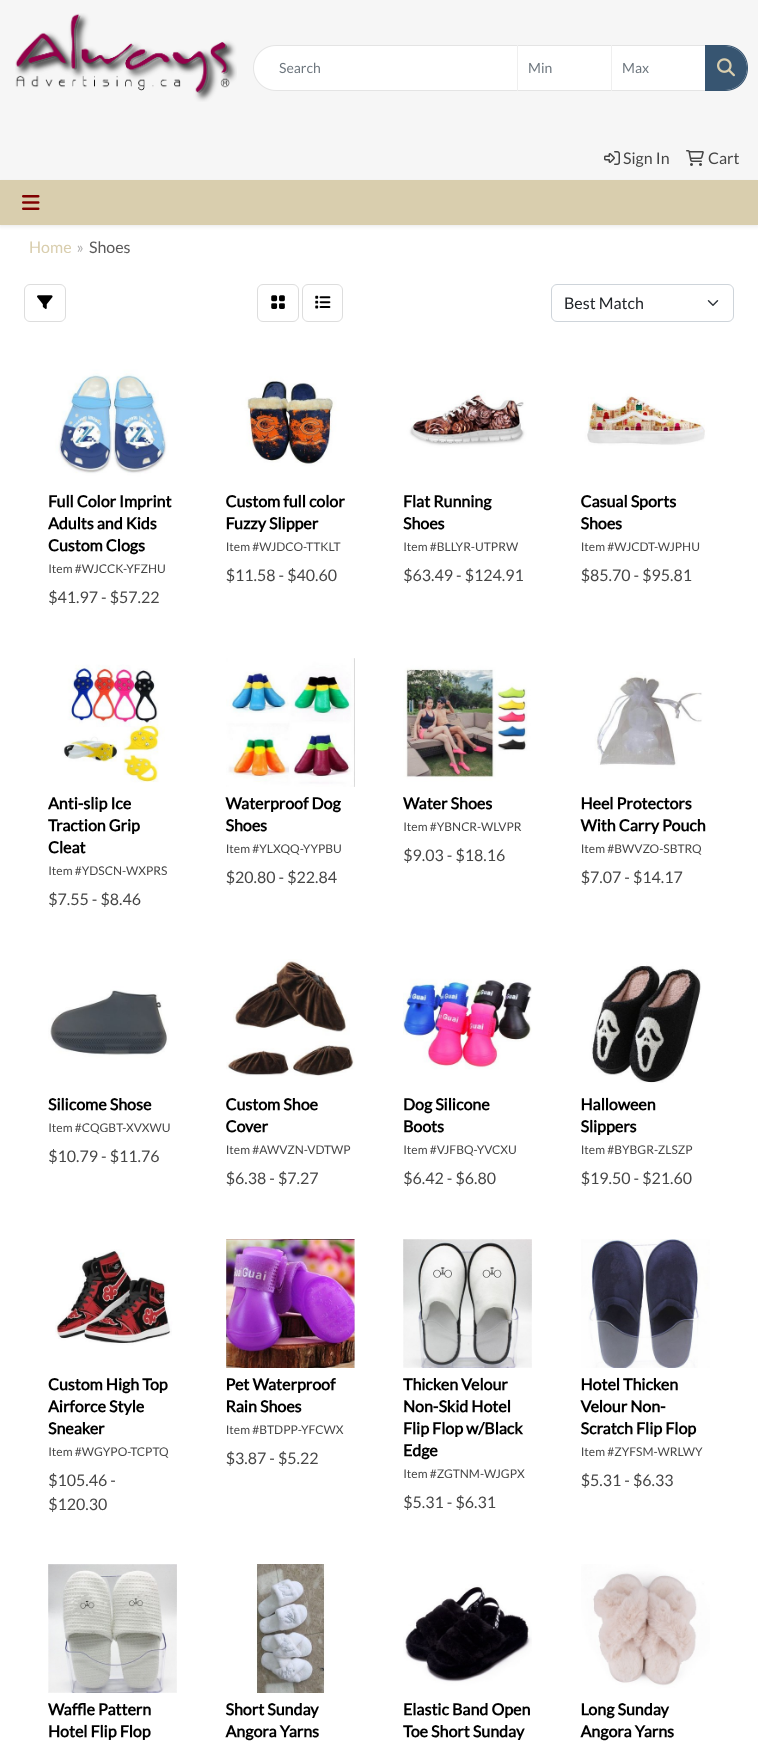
#include <cairo.h>
#include <math.h>
#include <stddef.h>


static void round_rect(cairo_t *cr, double x, double y, double w, double h, double r) {
    cairo_new_sub_path(cr);
    cairo_arc(cr, x + w - r, y + h - r, r, 0, M_PI / 2);
    cairo_arc(cr, x + r, y + h - r, r, M_PI / 2, M_PI);
    cairo_arc(cr, x + r, y + r, r, M_PI, 1.5 * M_PI);
    cairo_arc(cr, x + w - r, y + r, r, 1.5 * M_PI, 2 * M_PI);
    cairo_close_path(cr);
}

static void shadow(cairo_t *cr, double x, double y, double w, double h, double r, double blur, double alpha) {
    cairo_push_group_with_content(cr, CAIRO_CONTENT_ALPHA);
    cairo_set_operator(cr, CAIRO_OPERATOR_SOURCE);
    for (int i = 15; i >= -15 && fmin(w, h) + blur * i / 3 > 0; i -= 2) {
        double e = blur * i / 6;
        cairo_set_source_rgba(cr, 0, 0, 0, alpha * erfc((i - 1) / 8.5) / 2);
        round_rect(cr, x - e, y - e, w + 2 * e, h + 2 * e, fmax(0, fmin(r + e + blur * .6, fmin(w, h) / 2 + e)));
        cairo_fill(cr);
    }
    cairo_pattern_t *soft = cairo_pop_group(cr);
    cairo_mask(cr, soft);
    cairo_pattern_destroy(soft);
}

static void picture(cairo_t *cr, const char *path, double x, double y, double w, double h) {
    cairo_surface_t *image = cairo_image_surface_create_from_png(path);
    cairo_save(cr);
    cairo_set_source_surface(cr, image, x, y);
    cairo_rectangle(cr, x, y, w, h);
    cairo_fill(cr);
    cairo_restore(cr);
    cairo_surface_destroy(image);
}

int main(void) {
    cairo_surface_t *surface = cairo_image_surface_create(CAIRO_FORMAT_RGB24, 758, 1743);
    cairo_t *cr = cairo_create(surface);
    cairo_font_options_t *options = cairo_font_options_create();
    cairo_font_options_set_hint_metrics(options, CAIRO_HINT_METRICS_OFF);
    cairo_font_options_set_hint_style(options, CAIRO_HINT_STYLE_NONE);
    cairo_set_font_options(cr, options);
    cairo_set_miter_limit(cr, 4);
    cairo_set_source_rgb(cr, 1, 1, 1);
    cairo_paint(cr);
    cairo_set_source_rgb(cr, 0.961, 0.961, 0.961);
    cairo_rectangle(cr, 0, 0, 758, 180);
    cairo_fill(cr);
    picture(cr, "img1.png", 15, 13, 222, 89);
    cairo_set_source_rgb(cr, 1, 1, 1);
    cairo_new_path(cr);
    cairo_move_to(cr, 276, 45.5);
    cairo_line_to(cr, 517.5, 45.5);
    cairo_line_to(cr, 517.5, 90.5);
    cairo_line_to(cr, 276, 90.5);
    cairo_curve_to(cr, 263.5, 90.5, 253.5, 80.5, 253.5, 68);
    cairo_curve_to(cr, 253.5, 55.5, 263.5, 45.5, 276, 45.5);
    cairo_close_path(cr);
    cairo_fill_preserve(cr);
    cairo_set_source_rgb(cr, 0.894, 0.894, 0.894);
    cairo_set_line_width(cr, 1);
    cairo_stroke(cr);
    cairo_select_font_face(cr, "Lato", CAIRO_FONT_SLANT_NORMAL, CAIRO_FONT_WEIGHT_NORMAL);
    cairo_set_font_size(cr, 14);
    cairo_set_source_rgb(cr, 0.424, 0.459, 0.49);
    cairo_move_to(cr, 279, 73);
    cairo_show_text(cr, "Search");
    cairo_set_source_rgb(cr, 1, 1, 1);
    cairo_rectangle(cr, 518, 46, 93, 44);
    cairo_fill(cr);
    cairo_set_source_rgb(cr, 0.894, 0.894, 0.894);
    cairo_rectangle(cr, 517, 45, 189, 1);
    cairo_fill(cr);
    cairo_rectangle(cr, 517, 90, 189, 1);
    cairo_fill(cr);
    cairo_set_source_rgb(cr, 0.937, 0.937, 0.937);
    cairo_rectangle(cr, 517, 45, 1, 46);
    cairo_fill(cr);
    cairo_set_source_rgb(cr, 0.424, 0.459, 0.49);
    cairo_move_to(cr, 528, 73);
    cairo_show_text(cr, "Min");
    cairo_set_source_rgb(cr, 1, 1, 1);
    cairo_rectangle(cr, 612, 46, 93, 44);
    cairo_fill(cr);
    cairo_set_source_rgb(cr, 0.937, 0.937, 0.937);
    cairo_rectangle(cr, 611, 45, 1, 46);
    cairo_fill(cr);
    cairo_set_source_rgb(cr, 0.424, 0.459, 0.49);
    cairo_move_to(cr, 622, 73);
    cairo_show_text(cr, "Max");
    cairo_set_source_rgb(cr, 0.216, 0.333, 0.443);
    cairo_new_path(cr);
    cairo_move_to(cr, 705, 46);
    cairo_line_to(cr, 725, 46);
    cairo_curve_to(cr, 737, 46, 747, 56, 747, 68);
    cairo_curve_to(cr, 747, 80, 737, 90, 725, 90);
    cairo_line_to(cr, 705, 90);
    cairo_close_path(cr);
    cairo_fill(cr);
    cairo_set_fill_rule(cr, CAIRO_FILL_RULE_EVEN_ODD);
    cairo_new_path(cr);
    cairo_move_to(cr, 705, 45);
    cairo_line_to(cr, 725, 45);
    cairo_curve_to(cr, 738, 45, 748, 55, 748, 68);
    cairo_curve_to(cr, 748, 81, 738, 91, 725, 91);
    cairo_line_to(cr, 705, 91);
    cairo_close_path(cr);
    cairo_move_to(cr, 705, 46);
    cairo_line_to(cr, 725, 46);
    cairo_curve_to(cr, 737, 46, 747, 56, 747, 68);
    cairo_curve_to(cr, 747, 80, 737, 90, 725, 90);
    cairo_line_to(cr, 705, 90);
    cairo_close_path(cr);
    cairo_fill(cr);
    picture(cr, "img2.png", 717, 58, 18, 19);
    picture(cr, "img3.png", 604, 151, 16, 14);
    cairo_set_font_size(cr, 16);
    cairo_set_source_rgb(cr, 0.267, 0.267, 0.267);
    cairo_move_to(cr, 623, 164);
    cairo_show_text(cr, "Sign In");
    picture(cr, "img4.png", 686, 150, 18, 16);
    cairo_move_to(cr, 708, 164);
    cairo_show_text(cr, "Cart");
    cairo_set_source_rgb(cr, 0, 0, 0);
    shadow(cr, 0, 182, 758, 45, 0, 2, 0.07);
    cairo_set_source_rgb(cr, 0.851, 0.808, 0.682);
    cairo_rectangle(cr, 0, 180, 758, 45);
    cairo_fill(cr);
    picture(cr, "img5.png", 22, 195, 18, 15);
    picture(cr, "img6.png", 24, 241, 710, 1500);
    cairo_surface_write_to_png(surface, "page.png");
    cairo_font_options_destroy(options);
    cairo_destroy(cr);
    cairo_surface_destroy(surface);
    return 0;
}
